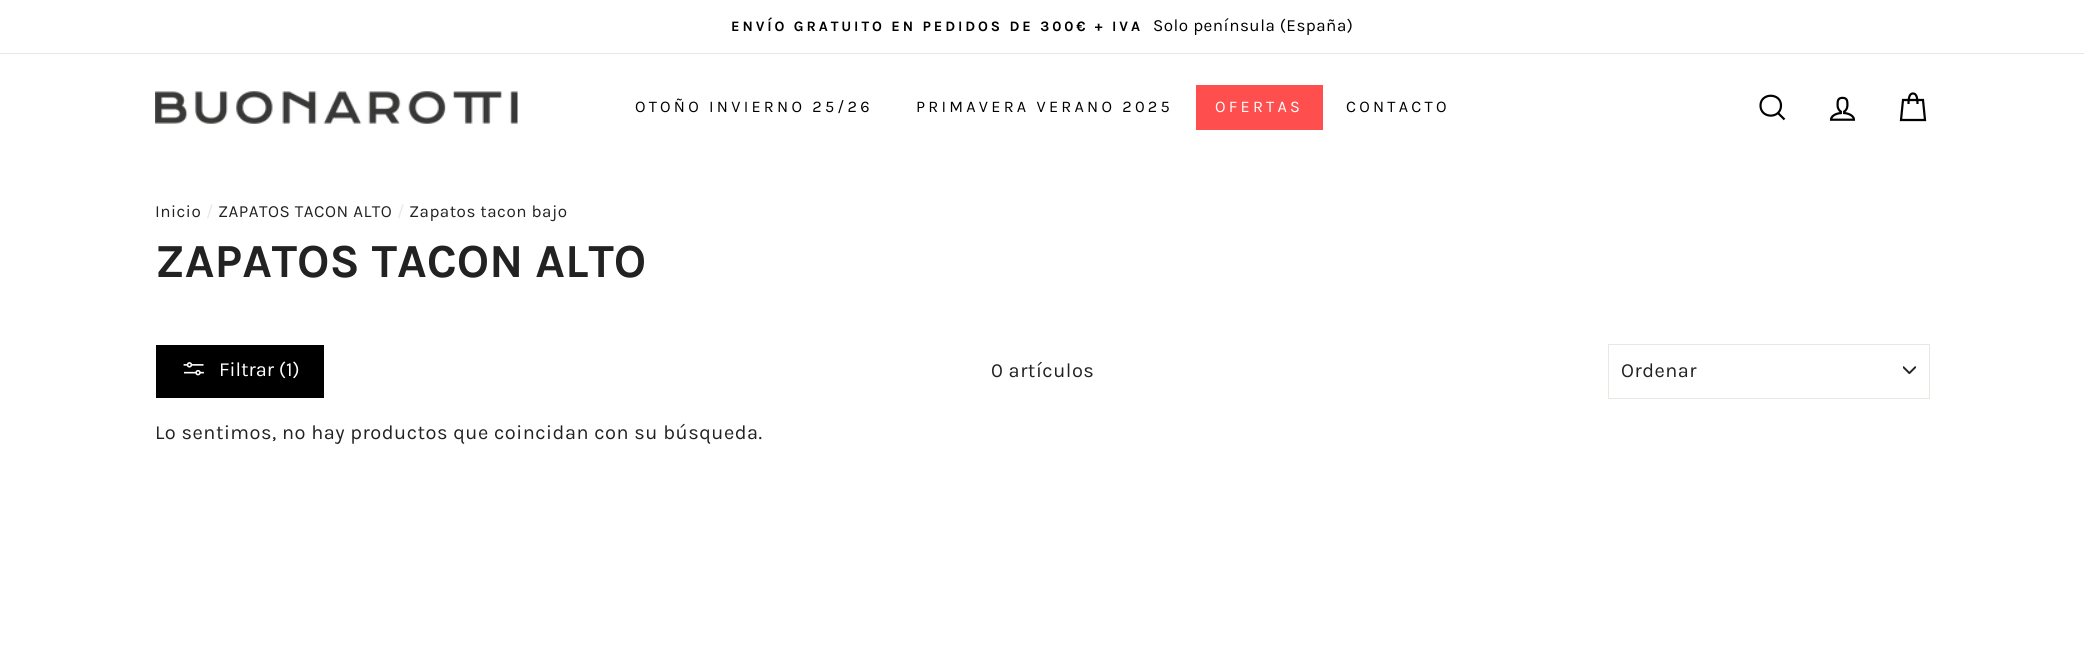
#include <cairo.h>
#include <math.h>
#include <stddef.h>


static void spaced_text(cairo_t *cr, double x, double y, const char *s, double letter, double word) {
    cairo_move_to(cr, x, y);
    while (*s) {
        char ch[5] = {0};
        int n = 0;
        do ch[n++] = *s++; while ((*s & 0xC0) == 0x80);
        cairo_show_text(cr, ch);
        cairo_rel_move_to(cr, letter + word * (*ch == ' '), 0);
    }
}

static void picture(cairo_t *cr, const char *path, double x, double y, double w, double h) {
    cairo_surface_t *image = cairo_image_surface_create_from_png(path);
    cairo_save(cr);
    cairo_set_source_surface(cr, image, x, y);
    cairo_rectangle(cr, x, y, w, h);
    cairo_fill(cr);
    cairo_restore(cr);
    cairo_surface_destroy(image);
}

int main(void) {
    cairo_surface_t *surface = cairo_image_surface_create(CAIRO_FORMAT_RGB24, 2084, 666);
    cairo_t *cr = cairo_create(surface);
    cairo_font_options_t *options = cairo_font_options_create();
    cairo_font_options_set_hint_metrics(options, CAIRO_HINT_METRICS_OFF);
    cairo_font_options_set_hint_style(options, CAIRO_HINT_STYLE_NONE);
    cairo_set_font_options(cr, options);
    cairo_set_miter_limit(cr, 4);
    cairo_set_source_rgb(cr, 1, 1, 1);
    cairo_paint(cr);
    cairo_set_source_rgb(cr, 0.91, 0.91, 0.882);
    cairo_rectangle(cr, 0, 53, 2084, 1);
    cairo_fill(cr);
    cairo_select_font_face(cr, "Karla", CAIRO_FONT_SLANT_NORMAL, CAIRO_FONT_WEIGHT_BOLD);
    cairo_set_font_size(cr, 14.45);
    cairo_set_source_rgb(cr, 0, 0, 0);
    spaced_text(cr, 731, 31, "ENVÍO GRATUITO EN PEDIDOS DE 300€ + IVA", 2.9, 0);
    cairo_select_font_face(cr, "Karla", CAIRO_FONT_SLANT_NORMAL, CAIRO_FONT_WEIGHT_NORMAL);
    cairo_set_font_size(cr, 17);
    spaced_text(cr, 1153, 31, "Solo península (España)", 0.5, 0);
    picture(cr, "img1.png", 155, 91, 363, 33);
    cairo_set_font_size(cr, 16.25);
    spaced_text(cr, 635, 112, "OTOÑO INVIERNO 25/26", 3.25, 0);
    spaced_text(cr, 916, 112, "PRIMAVERA VERANO 2025", 3.25, 0);
    cairo_set_source_rgb(cr, 1, 0.306, 0.306);
    cairo_rectangle(cr, 1196, 85, 127, 45);
    cairo_fill(cr);
    cairo_set_source_rgb(cr, 1, 1, 1);
    spaced_text(cr, 1215, 112, "OFERTAS", 3.25, 0);
    cairo_set_source_rgb(cr, 0, 0, 0);
    spaced_text(cr, 1346, 112, "CONTACTO", 3.25, 0);
    cairo_new_path(cr);
    cairo_move_to(cr, 1781, 105.5);
    cairo_curve_to(cr, 1781, 119, 1760.5, 119, 1760.5, 105.5);
    cairo_curve_to(cr, 1760.5, 92.5, 1781, 92.5, 1781, 105.5);
    cairo_close_path(cr);
    cairo_move_to(cr, 1784.5, 119.5);
    cairo_line_to(cr, 1778, 113);
    cairo_set_line_width(cr, 2.2);
    cairo_stroke(cr);
    picture(cr, "img2.png", 1829, 96, 27, 25);
    cairo_new_path(cr);
    cairo_move_to(cr, 1908.5, 104);
    cairo_curve_to(cr, 1908.5, 95.5, 1910.5, 93.5, 1913, 93.5);
    cairo_curve_to(cr, 1915.5, 93.5, 1917.5, 95.5, 1917.5, 104);
    cairo_move_to(cr, 1903, 100);
    cairo_line_to(cr, 1923, 100);
    cairo_line_to(cr, 1925, 120);
    cairo_line_to(cr, 1901, 120);
    cairo_close_path(cr);
    cairo_stroke(cr);
    cairo_set_font_size(cr, 17);
    cairo_set_source_rgb(cr, 0.133, 0.133, 0.133);
    spaced_text(cr, 155, 217, "Inicio", 0.5, 0);
    cairo_set_source_rgb(cr, 0.91, 0.91, 0.882);
    spaced_text(cr, 206, 217, "/", 0.5, 0);
    cairo_set_source_rgb(cr, 0.133, 0.133, 0.133);
    spaced_text(cr, 218, 217, "ZAPATOS TACON ALTO", 0.5, 0);
    cairo_set_source_rgb(cr, 0.91, 0.91, 0.882);
    spaced_text(cr, 397, 217, "/", 0.5, 0);
    cairo_set_source_rgb(cr, 0.133, 0.133, 0.133);
    spaced_text(cr, 409, 217, "Zapatos tacon bajo", 0.5, 0);
    cairo_select_font_face(cr, "Karla", CAIRO_FONT_SLANT_NORMAL, CAIRO_FONT_WEIGHT_BOLD);
    cairo_set_font_size(cr, 47.5);
    cairo_move_to(cr, 155, 277);
    cairo_show_text(cr, "ZAPATOS TACON ALTO");
    cairo_set_source_rgb(cr, 0, 0, 0);
    cairo_rectangle(cr, 156, 345, 168, 53);
    cairo_fill(cr);
    picture(cr, "img3.png", 183, 362, 21, 14);
    cairo_select_font_face(cr, "Karla", CAIRO_FONT_SLANT_NORMAL, CAIRO_FONT_WEIGHT_NORMAL);
    cairo_set_font_size(cr, 20);
    cairo_set_source_rgb(cr, 1, 1, 1);
    cairo_move_to(cr, 219, 376);
    cairo_show_text(cr, "Filtrar (1)");
    cairo_set_source_rgb(cr, 0.133, 0.133, 0.133);
    spaced_text(cr, 991, 377, "0 artículos", 0.5, 0);
    picture(cr, "img4.png", 1903, 366, 13, 8);
    cairo_rectangle(cr, 1608.5, 344.5, 321, 54);
    cairo_set_source_rgb(cr, 0.91, 0.91, 0.882);
    cairo_set_line_width(cr, 1);
    cairo_stroke(cr);
    cairo_set_source_rgb(cr, 0.133, 0.133, 0.133);
    spaced_text(cr, 1621, 377, "Ordenar", 0.5, 0);
    spaced_text(cr, 155, 439, "Lo sentimos, no hay productos que coincidan con su búsqueda.", 0.5, 0);
    cairo_surface_write_to_png(surface, "page.png");
    cairo_font_options_destroy(options);
    cairo_destroy(cr);
    cairo_surface_destroy(surface);
    return 0;
}
